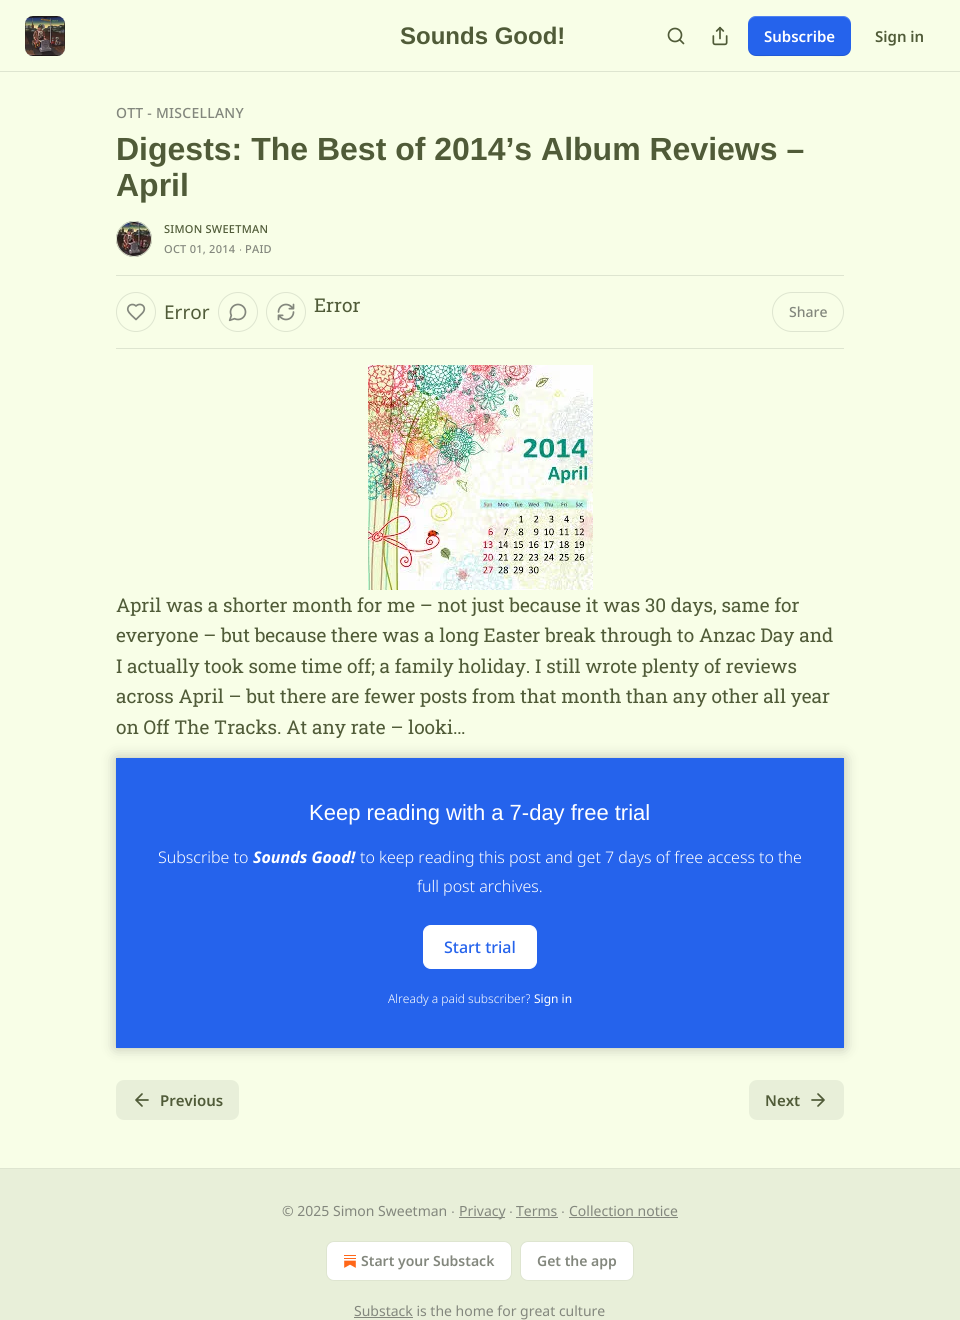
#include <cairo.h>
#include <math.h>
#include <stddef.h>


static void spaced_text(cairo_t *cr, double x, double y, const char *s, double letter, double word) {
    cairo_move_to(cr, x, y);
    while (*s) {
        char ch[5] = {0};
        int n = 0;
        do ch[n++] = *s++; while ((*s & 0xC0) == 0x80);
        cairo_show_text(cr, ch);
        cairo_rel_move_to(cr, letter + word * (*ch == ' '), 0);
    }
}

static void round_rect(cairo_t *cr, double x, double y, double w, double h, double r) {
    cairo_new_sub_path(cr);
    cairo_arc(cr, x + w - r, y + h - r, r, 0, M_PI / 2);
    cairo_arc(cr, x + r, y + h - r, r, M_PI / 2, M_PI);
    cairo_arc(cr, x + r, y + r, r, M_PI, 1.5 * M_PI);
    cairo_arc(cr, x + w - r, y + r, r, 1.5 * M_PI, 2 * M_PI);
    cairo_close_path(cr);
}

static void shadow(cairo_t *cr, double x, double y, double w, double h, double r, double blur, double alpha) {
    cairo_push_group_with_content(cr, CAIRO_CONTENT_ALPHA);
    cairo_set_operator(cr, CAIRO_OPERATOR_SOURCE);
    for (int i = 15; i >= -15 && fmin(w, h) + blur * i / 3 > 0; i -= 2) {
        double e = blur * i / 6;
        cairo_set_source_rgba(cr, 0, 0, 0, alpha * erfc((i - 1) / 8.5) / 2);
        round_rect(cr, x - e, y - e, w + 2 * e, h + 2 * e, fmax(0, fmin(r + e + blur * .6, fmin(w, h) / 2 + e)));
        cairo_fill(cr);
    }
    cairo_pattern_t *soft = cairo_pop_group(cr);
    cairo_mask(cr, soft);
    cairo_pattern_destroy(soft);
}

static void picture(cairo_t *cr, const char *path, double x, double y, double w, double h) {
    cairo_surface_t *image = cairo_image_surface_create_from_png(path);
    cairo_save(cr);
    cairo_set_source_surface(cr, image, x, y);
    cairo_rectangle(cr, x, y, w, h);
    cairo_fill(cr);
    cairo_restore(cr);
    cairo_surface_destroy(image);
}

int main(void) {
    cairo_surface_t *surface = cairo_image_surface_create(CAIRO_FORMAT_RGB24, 960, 1320);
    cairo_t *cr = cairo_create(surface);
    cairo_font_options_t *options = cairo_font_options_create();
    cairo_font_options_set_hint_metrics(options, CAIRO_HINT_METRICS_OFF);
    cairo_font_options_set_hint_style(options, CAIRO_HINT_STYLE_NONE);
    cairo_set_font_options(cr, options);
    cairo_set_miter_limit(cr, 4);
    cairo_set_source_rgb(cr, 0.969, 0.996, 0.906);
    cairo_paint(cr);
    cairo_set_source_rgb(cr, 0.871, 0.898, 0.816);
    cairo_rectangle(cr, 0, 71, 960, 1);
    cairo_fill(cr);
    cairo_set_source_rgb(cr, 1, 1, 1);
    round_rect(cr, 25, 16, 40, 40, 8);
    cairo_fill(cr);
    picture(cr, "img1.png", 25, 16, 40, 40);
    cairo_select_font_face(cr, "Liberation Sans", CAIRO_FONT_SLANT_NORMAL, CAIRO_FONT_WEIGHT_BOLD);
    cairo_set_font_size(cr, 24);
    cairo_set_source_rgb(cr, 0.314, 0.357, 0.22);
    cairo_move_to(cr, 400, 44);
    cairo_show_text(cr, "Sounds Good!");
    cairo_new_path(cr);
    cairo_arc(cr, 675, 35, 6.5, 0, 2 * M_PI);
    cairo_set_line_width(cr, 1.7);
    cairo_stroke(cr);
    cairo_new_path(cr);
    cairo_move_to(cr, 683.5, 43.5);
    cairo_line_to(cr, 680, 40);
    cairo_set_line_cap(cr, CAIRO_LINE_CAP_ROUND);
    cairo_set_line_join(cr, CAIRO_LINE_JOIN_ROUND);
    cairo_stroke(cr);
    picture(cr, "img2.png", 712, 26, 16, 20);
    cairo_set_source_rgb(cr, 0.145, 0.388, 0.922);
    round_rect(cr, 748, 16, 103, 40, 8);
    cairo_fill(cr);
    cairo_set_source_rgba(cr, 0, 0, 0, 0.1);
    cairo_new_path(cr);
    cairo_move_to(cr, 748, 47);
    cairo_curve_to(cr, 748, 59, 762, 56, 770, 56);
    cairo_line_to(cr, 828, 56);
    cairo_curve_to(cr, 837, 56, 851, 59, 851, 47);
    cairo_curve_to(cr, 851, 51, 847, 55, 843, 55);
    cairo_line_to(cr, 756, 55);
    cairo_curve_to(cr, 752, 55, 748, 51, 748, 47);
    cairo_close_path(cr);
    cairo_fill(cr);
    cairo_set_source_rgba(cr, 1, 1, 1, 0.2);
    cairo_new_path(cr);
    cairo_move_to(cr, 756, 17);
    cairo_line_to(cr, 843, 17);
    cairo_curve_to(cr, 847, 17, 851, 21, 851, 25);
    cairo_curve_to(cr, 851, 13, 837, 16, 828, 16);
    cairo_line_to(cr, 770, 16);
    cairo_curve_to(cr, 762, 16, 748, 13, 748, 25);
    cairo_curve_to(cr, 748, 21, 752, 17, 756, 17);
    cairo_close_path(cr);
    cairo_fill(cr);
    cairo_select_font_face(cr, "Noto Sans SemiBold", CAIRO_FONT_SLANT_NORMAL, CAIRO_FONT_WEIGHT_NORMAL);
    cairo_set_font_size(cr, 15);
    cairo_set_source_rgb(cr, 1, 1, 1);
    cairo_move_to(cr, 764, 42);
    cairo_show_text(cr, "Subscribe");
    cairo_set_source_rgb(cr, 0.314, 0.357, 0.22);
    cairo_move_to(cr, 875, 42);
    cairo_show_text(cr, "Sign in");
    cairo_select_font_face(cr, "Noto Sans Medium", CAIRO_FONT_SLANT_NORMAL, CAIRO_FONT_WEIGHT_NORMAL);
    cairo_set_font_size(cr, 14);
    cairo_set_source_rgb(cr, 0.514, 0.529, 0.49);
    spaced_text(cr, 116, 118, "OTT - MISCELLANY", 0.25, 0);
    cairo_select_font_face(cr, "Liberation Sans", CAIRO_FONT_SLANT_NORMAL, CAIRO_FONT_WEIGHT_BOLD);
    cairo_set_font_size(cr, 32);
    cairo_set_source_rgb(cr, 0.314, 0.357, 0.22);
    cairo_move_to(cr, 116, 160);
    cairo_show_text(cr, "Digests: The Best of 2014’s Album Reviews –");
    cairo_move_to(cr, 116, 196);
    cairo_show_text(cr, "April");
    cairo_new_path(cr);
    cairo_arc(cr, 134, 239, 17.5, 0, 2 * M_PI);
    cairo_set_source_rgb(cr, 0.871, 0.898, 0.816);
    cairo_set_line_width(cr, 1);
    cairo_set_line_cap(cr, CAIRO_LINE_CAP_BUTT);
    cairo_set_line_join(cr, CAIRO_LINE_JOIN_MITER);
    cairo_stroke(cr);
    picture(cr, "img3.png", 116, 221, 36, 36);
    cairo_arc(cr, 134, 239, 17.5, 0, 2 * M_PI);
    cairo_stroke(cr);
    cairo_select_font_face(cr, "Noto Sans Medium", CAIRO_FONT_SLANT_NORMAL, CAIRO_FONT_WEIGHT_NORMAL);
    cairo_set_font_size(cr, 11);
    cairo_set_source_rgb(cr, 0.314, 0.357, 0.22);
    spaced_text(cr, 164, 233, "SIMON SWEETMAN", 0.25, 0);
    cairo_set_source_rgb(cr, 0.514, 0.529, 0.49);
    spaced_text(cr, 164, 253, "OCT 01, 2014", 0.25, 0);
    cairo_select_font_face(cr, "Liberation Sans", CAIRO_FONT_SLANT_NORMAL, CAIRO_FONT_WEIGHT_NORMAL);
    spaced_text(cr, 239, 253, "∙", 0.25, 0);
    cairo_select_font_face(cr, "Noto Sans Medium", CAIRO_FONT_SLANT_NORMAL, CAIRO_FONT_WEIGHT_NORMAL);
    spaced_text(cr, 245, 253, "PAID", 0.25, 0);
    cairo_set_source_rgb(cr, 0.871, 0.898, 0.816);
    cairo_rectangle(cr, 116, 275, 728, 1);
    cairo_fill(cr);
    cairo_rectangle(cr, 116, 348, 728, 1);
    cairo_fill(cr);
    cairo_arc(cr, 136, 312, 19.5, 0, 2 * M_PI);
    cairo_stroke(cr);
    cairo_new_path(cr);
    cairo_move_to(cr, 142, 313.5);
    cairo_curve_to(cr, 148, 307.5, 141, 301.5, 136, 306);
    cairo_curve_to(cr, 132.5, 302.5, 126.5, 305.5, 128, 310.5);
    cairo_curve_to(cr, 129, 313.5, 134, 317.5, 136, 319.5);
    cairo_close_path(cr);
    cairo_set_source_rgb(cr, 0.514, 0.529, 0.49);
    cairo_set_line_width(cr, 1.7);
    cairo_set_line_cap(cr, CAIRO_LINE_CAP_ROUND);
    cairo_set_line_join(cr, CAIRO_LINE_JOIN_ROUND);
    cairo_stroke(cr);
    cairo_select_font_face(cr, "Noto Sans", CAIRO_FONT_SLANT_NORMAL, CAIRO_FONT_WEIGHT_NORMAL);
    cairo_set_font_size(cr, 19);
    cairo_set_source_rgb(cr, 0.314, 0.357, 0.22);
    cairo_move_to(cr, 164, 319);
    cairo_show_text(cr, "Error");
    cairo_new_path(cr);
    cairo_arc(cr, 238, 312, 19.5, 0, 2 * M_PI);
    cairo_set_source_rgb(cr, 0.871, 0.898, 0.816);
    cairo_set_line_width(cr, 1);
    cairo_set_line_cap(cr, CAIRO_LINE_CAP_BUTT);
    cairo_set_line_join(cr, CAIRO_LINE_JOIN_MITER);
    cairo_stroke(cr);
    picture(cr, "img4.png", 228, 303, 19, 19);
    cairo_arc(cr, 286, 312, 19.5, 0, 2 * M_PI);
    cairo_stroke(cr);
    picture(cr, "img5.png", 277, 303, 18, 18);
    cairo_select_font_face(cr, "Roboto Slab", CAIRO_FONT_SLANT_NORMAL, CAIRO_FONT_WEIGHT_NORMAL);
    cairo_set_source_rgb(cr, 0.314, 0.357, 0.22);
    cairo_move_to(cr, 314, 312);
    cairo_show_text(cr, "Error");
    round_rect(cr, 772.5, 292.5, 71, 39, 19.5);
    cairo_set_source_rgb(cr, 0.871, 0.898, 0.816);
    cairo_stroke(cr);
    cairo_select_font_face(cr, "Noto Sans Medium", CAIRO_FONT_SLANT_NORMAL, CAIRO_FONT_WEIGHT_NORMAL);
    cairo_set_font_size(cr, 14);
    cairo_set_source_rgb(cr, 0.514, 0.529, 0.49);
    cairo_move_to(cr, 789, 317);
    cairo_show_text(cr, "Share");
    picture(cr, "img6.png", 368, 365, 225, 225);
    cairo_select_font_face(cr, "Roboto Slab", CAIRO_FONT_SLANT_NORMAL, CAIRO_FONT_WEIGHT_NORMAL);
    cairo_set_font_size(cr, 19);
    cairo_set_source_rgb(cr, 0.314, 0.357, 0.22);
    cairo_move_to(cr, 116, 612);
    cairo_show_text(cr, "April was a shorter month for me – not just because it was 30 days, same for");
    cairo_move_to(cr, 116, 642);
    cairo_show_text(cr, "everyone – but because there was a long Easter break through to Anzac Day and");
    cairo_move_to(cr, 116, 673);
    cairo_show_text(cr, "I actually took some time off; a family holiday. I still wrote plenty of reviews");
    cairo_move_to(cr, 116, 703);
    cairo_show_text(cr, "across April – but there are fewer posts from that month than any other all year");
    cairo_move_to(cr, 116, 734);
    cairo_show_text(cr, "on Off The Tracks. At any rate – looki…");
    cairo_set_source_rgb(cr, 0.145, 0.388, 0.922);
    cairo_rectangle(cr, 116, 758, 728, 290);
    cairo_fill(cr);
    cairo_set_source_rgb(cr, 1, 1, 1);
    round_rect(cr, 423.5, 925.5, 113, 43, 7.5);
    cairo_fill_preserve(cr);
    cairo_stroke(cr);
    cairo_save(cr);
    cairo_set_fill_rule(cr, CAIRO_FILL_RULE_EVEN_ODD);
    cairo_new_path(cr);
    cairo_move_to(cr, 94, 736);
    cairo_line_to(cr, 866, 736);
    cairo_line_to(cr, 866, 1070);
    cairo_line_to(cr, 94, 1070);
    cairo_close_path(cr);
    cairo_move_to(cr, 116, 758);
    cairo_line_to(cr, 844, 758);
    cairo_line_to(cr, 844, 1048);
    cairo_line_to(cr, 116, 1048);
    cairo_close_path(cr);
    cairo_clip(cr);
    cairo_set_source_rgb(cr, 0, 0, 0);
    shadow(cr, 116, 758, 728, 290, 0, 7, 0.25);
    cairo_restore(cr);
    cairo_select_font_face(cr, "Liberation Sans", CAIRO_FONT_SLANT_NORMAL, CAIRO_FONT_WEIGHT_NORMAL);
    cairo_set_font_size(cr, 22);
    cairo_move_to(cr, 309, 820);
    cairo_show_text(cr, "Keep reading with a 7-day free trial");
    cairo_select_font_face(cr, "Noto Sans Light", CAIRO_FONT_SLANT_NORMAL, CAIRO_FONT_WEIGHT_NORMAL);
    cairo_set_font_size(cr, 16);
    cairo_move_to(cr, 158, 863);
    cairo_show_text(cr, "Subscribe to");
    cairo_select_font_face(cr, "Noto Sans", CAIRO_FONT_SLANT_ITALIC, CAIRO_FONT_WEIGHT_BOLD);
    cairo_move_to(cr, 253, 863);
    cairo_show_text(cr, "Sounds Good!");
    cairo_select_font_face(cr, "Noto Sans Light", CAIRO_FONT_SLANT_NORMAL, CAIRO_FONT_WEIGHT_NORMAL);
    cairo_move_to(cr, 360, 863);
    cairo_show_text(cr, "to keep reading this post and get 7 days of free access to the");
    cairo_move_to(cr, 417, 892);
    cairo_show_text(cr, "full post archives.");
    cairo_select_font_face(cr, "Noto Sans Medium", CAIRO_FONT_SLANT_NORMAL, CAIRO_FONT_WEIGHT_NORMAL);
    cairo_set_source_rgb(cr, 0.145, 0.388, 0.922);
    cairo_move_to(cr, 444, 953);
    cairo_show_text(cr, "Start trial");
    cairo_select_font_face(cr, "Noto Sans Light", CAIRO_FONT_SLANT_NORMAL, CAIRO_FONT_WEIGHT_NORMAL);
    cairo_set_font_size(cr, 12);
    cairo_set_source_rgb(cr, 1, 1, 1);
    cairo_move_to(cr, 388, 1003);
    cairo_show_text(cr, "Already a paid subscriber?");
    cairo_select_font_face(cr, "Noto Sans", CAIRO_FONT_SLANT_NORMAL, CAIRO_FONT_WEIGHT_NORMAL);
    cairo_move_to(cr, 534, 1003);
    cairo_show_text(cr, "Sign in");
    cairo_set_source_rgb(cr, 0.91, 0.937, 0.851);
    round_rect(cr, 116, 1080, 123, 40, 8);
    cairo_fill(cr);
    cairo_new_path(cr);
    cairo_move_to(cr, 142, 1106);
    cairo_line_to(cr, 136, 1100);
    cairo_line_to(cr, 142, 1094);
    cairo_move_to(cr, 148, 1100);
    cairo_line_to(cr, 136, 1100);
    cairo_set_source_rgb(cr, 0.314, 0.357, 0.22);
    cairo_set_line_width(cr, 1.7);
    cairo_set_line_cap(cr, CAIRO_LINE_CAP_ROUND);
    cairo_set_line_join(cr, CAIRO_LINE_JOIN_ROUND);
    cairo_stroke(cr);
    cairo_select_font_face(cr, "Noto Sans SemiBold", CAIRO_FONT_SLANT_NORMAL, CAIRO_FONT_WEIGHT_NORMAL);
    cairo_set_font_size(cr, 15);
    cairo_move_to(cr, 160, 1106);
    cairo_show_text(cr, "Previous");
    cairo_set_source_rgb(cr, 0.91, 0.937, 0.851);
    round_rect(cr, 749, 1080, 95, 40, 8);
    cairo_fill(cr);
    cairo_set_source_rgb(cr, 0.314, 0.357, 0.22);
    cairo_move_to(cr, 765, 1106);
    cairo_show_text(cr, "Next");
    cairo_new_path(cr);
    cairo_move_to(cr, 812, 1100);
    cairo_line_to(cr, 824, 1100);
    cairo_move_to(cr, 818, 1094);
    cairo_line_to(cr, 824, 1100);
    cairo_line_to(cr, 818, 1106);
    cairo_stroke(cr);
    cairo_set_source_rgb(cr, 0.91, 0.937, 0.851);
    cairo_rectangle(cr, 0, 1169, 960, 151);
    cairo_fill(cr);
    cairo_set_source_rgb(cr, 0.871, 0.898, 0.816);
    cairo_rectangle(cr, 0, 1168, 960, 1);
    cairo_fill(cr);
    cairo_select_font_face(cr, "Noto Sans", CAIRO_FONT_SLANT_NORMAL, CAIRO_FONT_WEIGHT_NORMAL);
    cairo_set_font_size(cr, 14);
    cairo_set_source_rgb(cr, 0.514, 0.529, 0.49);
    cairo_move_to(cr, 282, 1216);
    cairo_show_text(cr, "© 2025 Simon Sweetman");
    cairo_select_font_face(cr, "Liberation Sans", CAIRO_FONT_SLANT_NORMAL, CAIRO_FONT_WEIGHT_NORMAL);
    cairo_move_to(cr, 451, 1216);
    cairo_show_text(cr, "∙");
    cairo_rectangle(cr, 459, 1217, 46, 1);
    cairo_fill(cr);
    cairo_select_font_face(cr, "Noto Sans", CAIRO_FONT_SLANT_NORMAL, CAIRO_FONT_WEIGHT_NORMAL);
    cairo_move_to(cr, 459, 1216);
    cairo_show_text(cr, "Privacy");
    cairo_select_font_face(cr, "Liberation Sans", CAIRO_FONT_SLANT_NORMAL, CAIRO_FONT_WEIGHT_NORMAL);
    cairo_move_to(cr, 509, 1216);
    cairo_show_text(cr, "∙");
    cairo_select_font_face(cr, "Noto Sans", CAIRO_FONT_SLANT_NORMAL, CAIRO_FONT_WEIGHT_NORMAL);
    cairo_move_to(cr, 516, 1216);
    cairo_show_text(cr, "Terms");
    cairo_rectangle(cr, 516, 1217, 42, 1);
    cairo_fill(cr);
    cairo_select_font_face(cr, "Liberation Sans", CAIRO_FONT_SLANT_NORMAL, CAIRO_FONT_WEIGHT_NORMAL);
    cairo_move_to(cr, 561, 1216);
    cairo_show_text(cr, "∙");
    cairo_select_font_face(cr, "Noto Sans", CAIRO_FONT_SLANT_NORMAL, CAIRO_FONT_WEIGHT_NORMAL);
    cairo_move_to(cr, 569, 1216);
    cairo_show_text(cr, "Collection notice");
    cairo_rectangle(cr, 569, 1217, 109, 1);
    cairo_fill(cr);
    cairo_set_source_rgb(cr, 1, 1, 1);
    round_rect(cr, 326.5, 1241.5, 185, 39, 7.5);
    cairo_fill_preserve(cr);
    cairo_set_source_rgb(cr, 0.871, 0.898, 0.816);
    cairo_set_line_width(cr, 1);
    cairo_set_line_cap(cr, CAIRO_LINE_CAP_BUTT);
    cairo_set_line_join(cr, CAIRO_LINE_JOIN_MITER);
    cairo_stroke(cr);
    picture(cr, "img7.png", 344, 1255, 12, 13);
    cairo_select_font_face(cr, "Noto Sans SemiBold", CAIRO_FONT_SLANT_NORMAL, CAIRO_FONT_WEIGHT_NORMAL);
    cairo_set_source_rgb(cr, 0.514, 0.529, 0.49);
    cairo_move_to(cr, 361, 1266);
    cairo_show_text(cr, "Start your Substack");
    cairo_set_source_rgb(cr, 1, 1, 1);
    round_rect(cr, 520.5, 1241.5, 113, 39, 7.5);
    cairo_fill_preserve(cr);
    cairo_set_source_rgb(cr, 0.871, 0.898, 0.816);
    cairo_stroke(cr);
    cairo_set_source_rgb(cr, 0.514, 0.529, 0.49);
    cairo_move_to(cr, 537, 1266);
    cairo_show_text(cr, "Get the app");
    cairo_rectangle(cr, 354, 1317, 59, 1);
    cairo_fill(cr);
    cairo_select_font_face(cr, "Noto Sans", CAIRO_FONT_SLANT_NORMAL, CAIRO_FONT_WEIGHT_NORMAL);
    cairo_move_to(cr, 354, 1316);
    cairo_show_text(cr, "Substack is the home for great culture");
    cairo_surface_write_to_png(surface, "page.png");
    cairo_font_options_destroy(options);
    cairo_destroy(cr);
    cairo_surface_destroy(surface);
    return 0;
}
